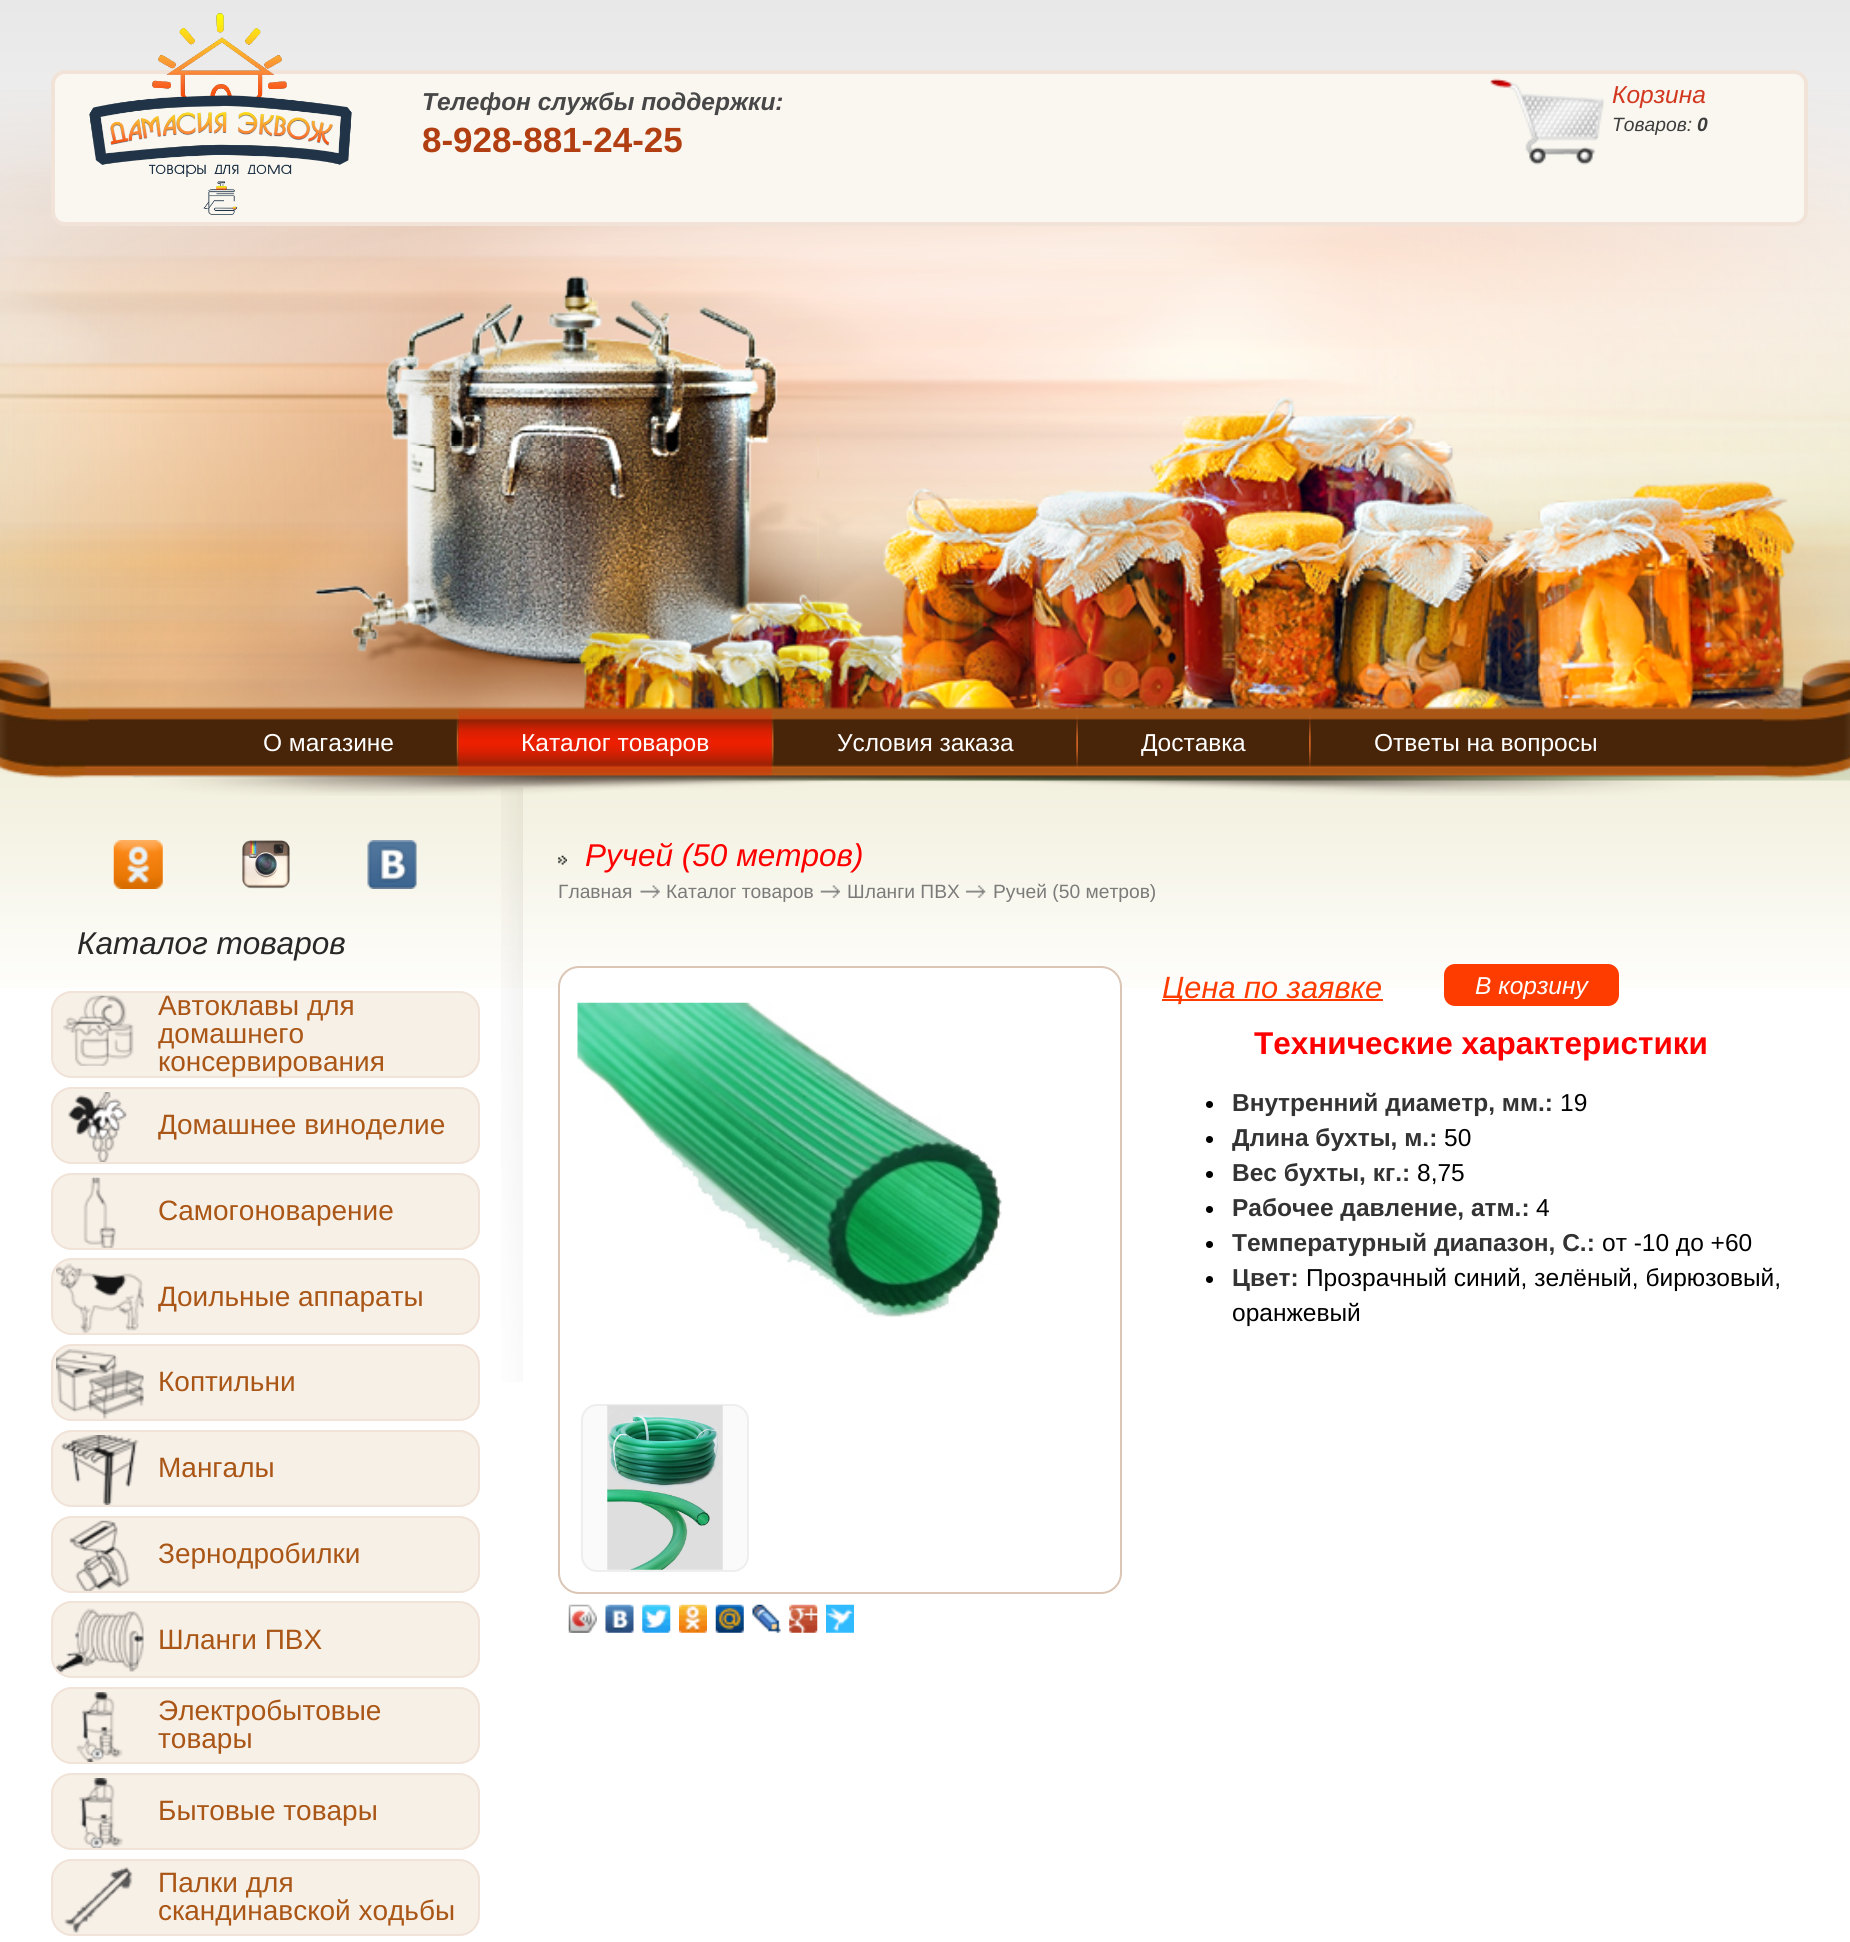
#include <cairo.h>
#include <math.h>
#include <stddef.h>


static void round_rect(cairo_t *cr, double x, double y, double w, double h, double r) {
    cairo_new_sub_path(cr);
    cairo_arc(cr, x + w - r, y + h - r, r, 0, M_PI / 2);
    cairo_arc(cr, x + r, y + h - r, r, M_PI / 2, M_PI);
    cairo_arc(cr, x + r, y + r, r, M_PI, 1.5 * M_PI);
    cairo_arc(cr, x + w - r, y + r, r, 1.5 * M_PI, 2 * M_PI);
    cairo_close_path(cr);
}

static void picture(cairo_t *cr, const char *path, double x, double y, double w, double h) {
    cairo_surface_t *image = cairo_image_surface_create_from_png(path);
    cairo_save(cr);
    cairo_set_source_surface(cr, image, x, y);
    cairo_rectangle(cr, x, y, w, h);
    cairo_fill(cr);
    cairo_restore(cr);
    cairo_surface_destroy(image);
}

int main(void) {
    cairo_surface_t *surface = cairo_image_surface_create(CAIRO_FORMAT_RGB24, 1850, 1942);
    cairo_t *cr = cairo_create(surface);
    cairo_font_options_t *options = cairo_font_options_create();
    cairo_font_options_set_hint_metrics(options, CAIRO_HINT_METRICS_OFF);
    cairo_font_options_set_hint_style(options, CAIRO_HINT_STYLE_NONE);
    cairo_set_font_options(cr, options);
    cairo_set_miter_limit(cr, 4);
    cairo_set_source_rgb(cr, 1, 1, 1);
    cairo_paint(cr);
    picture(cr, "img1.png", 0, 0, 1850, 988);
    picture(cr, "img4.png", 0, 90, 1850, 691);
    cairo_set_source_rgb(cr, 0.976, 0.965, 0.941);
    round_rect(cr, 53, 72, 1753, 152, 12);
    cairo_fill_preserve(cr);
    cairo_set_source_rgb(cr, 0.945, 0.89, 0.847);
    cairo_set_line_width(cr, 4);
    cairo_stroke(cr);
    picture(cr, "img2.png", 89, 13, 263, 202);
    cairo_select_font_face(cr, "Liberation Sans", CAIRO_FONT_SLANT_ITALIC, CAIRO_FONT_WEIGHT_BOLD);
    cairo_set_font_size(cr, 24.5);
    cairo_set_source_rgb(cr, 0.278, 0.278, 0.278);
    cairo_move_to(cr, 422, 110);
    cairo_show_text(cr, "Телефон службы поддержки:");
    cairo_select_font_face(cr, "Liberation Sans", CAIRO_FONT_SLANT_NORMAL, CAIRO_FONT_WEIGHT_BOLD);
    cairo_set_font_size(cr, 35);
    cairo_set_source_rgb(cr, 0.694, 0.247, 0.071);
    cairo_move_to(cr, 422, 152);
    cairo_show_text(cr, "8-928-881-24-25");
    picture(cr, "img3.png", 1490, 78, 115, 87);
    cairo_select_font_face(cr, "Liberation Sans", CAIRO_FONT_SLANT_ITALIC, CAIRO_FONT_WEIGHT_NORMAL);
    cairo_set_font_size(cr, 24.5);
    cairo_set_source_rgb(cr, 0.824, 0.22, 0.122);
    cairo_move_to(cr, 1612, 103);
    cairo_show_text(cr, "Корзина");
    cairo_set_font_size(cr, 19.25);
    cairo_set_source_rgb(cr, 0.239, 0.239, 0.239);
    cairo_move_to(cr, 1612, 131);
    cairo_show_text(cr, "Товаров:");
    cairo_select_font_face(cr, "Liberation Sans", CAIRO_FONT_SLANT_ITALIC, CAIRO_FONT_WEIGHT_BOLD);
    cairo_move_to(cr, 1697, 131);
    cairo_show_text(cr, "0");
    picture(cr, "img11.png", 501, 787, 22, 595);
    picture(cr, "img5.png", 0, 659, 1850, 137);
    cairo_select_font_face(cr, "Liberation Sans", CAIRO_FONT_SLANT_NORMAL, CAIRO_FONT_WEIGHT_NORMAL);
    cairo_set_font_size(cr, 24.5);
    cairo_set_source_rgb(cr, 1, 1, 1);
    cairo_move_to(cr, 263, 751);
    cairo_show_text(cr, "О магазине");
    picture(cr, "img6.png", 456, 715, 3, 55);
    picture(cr, "img7.png", 458, 708, 314, 68);
    cairo_move_to(cr, 521, 751);
    cairo_show_text(cr, "Каталог товаров");
    picture(cr, "img8.png", 771, 715, 3, 55);
    cairo_move_to(cr, 837, 751);
    cairo_show_text(cr, "Условия заказа");
    picture(cr, "img9.png", 1076, 715, 2, 55);
    cairo_move_to(cr, 1141, 751);
    cairo_show_text(cr, "Доставка");
    picture(cr, "img10.png", 1309, 715, 2, 55);
    cairo_move_to(cr, 1374, 751);
    cairo_show_text(cr, "Ответы на вопросы");
    picture(cr, "img12.png", 113, 840, 50, 49);
    picture(cr, "img13.png", 242, 840, 48, 49);
    picture(cr, "img14.png", 367, 840, 50, 49);
    cairo_select_font_face(cr, "Liberation Sans", CAIRO_FONT_SLANT_ITALIC, CAIRO_FONT_WEIGHT_NORMAL);
    cairo_set_font_size(cr, 31.5);
    cairo_set_source_rgb(cr, 0.157, 0.157, 0.157);
    cairo_move_to(cr, 77, 954);
    cairo_show_text(cr, "Каталог товаров");
    cairo_set_source_rgb(cr, 0.965, 0.941, 0.906);
    round_rect(cr, 51, 991, 429, 87, 21);
    cairo_fill(cr);
    picture(cr, "img15.png", 63, 995, 71, 71);
    round_rect(cr, 52, 992, 427, 85, 20);
    cairo_set_source_rgb(cr, 0.945, 0.89, 0.847);
    cairo_set_line_width(cr, 2);
    cairo_stroke(cr);
    cairo_select_font_face(cr, "Liberation Sans", CAIRO_FONT_SLANT_NORMAL, CAIRO_FONT_WEIGHT_NORMAL);
    cairo_set_font_size(cr, 28);
    cairo_set_source_rgb(cr, 0.667, 0.337, 0.086);
    cairo_move_to(cr, 158, 1015);
    cairo_show_text(cr, "Автоклавы для");
    cairo_move_to(cr, 158, 1043);
    cairo_show_text(cr, "домашнего");
    cairo_move_to(cr, 158, 1071);
    cairo_show_text(cr, "консервирования");
    cairo_set_source_rgb(cr, 0.965, 0.941, 0.906);
    round_rect(cr, 51, 1087, 429, 77, 21);
    cairo_fill(cr);
    picture(cr, "img16.png", 68, 1092, 59, 70);
    round_rect(cr, 52, 1088, 427, 75, 20);
    cairo_set_source_rgb(cr, 0.945, 0.89, 0.847);
    cairo_stroke(cr);
    cairo_set_source_rgb(cr, 0.667, 0.337, 0.086);
    cairo_move_to(cr, 158, 1134);
    cairo_show_text(cr, "Домашнее виноделие");
    cairo_set_source_rgb(cr, 0.965, 0.941, 0.906);
    round_rect(cr, 51, 1173, 429, 77, 21);
    cairo_fill(cr);
    picture(cr, "img17.png", 83, 1177, 33, 71);
    round_rect(cr, 52, 1174, 427, 75, 20);
    cairo_set_source_rgb(cr, 0.945, 0.89, 0.847);
    cairo_stroke(cr);
    cairo_set_source_rgb(cr, 0.667, 0.337, 0.086);
    cairo_move_to(cr, 158, 1220);
    cairo_show_text(cr, "Самогоноварение");
    cairo_set_source_rgb(cr, 0.965, 0.941, 0.906);
    round_rect(cr, 51, 1258, 429, 77, 21);
    cairo_fill(cr);
    picture(cr, "img18.png", 56, 1263, 88, 70);
    round_rect(cr, 52, 1259, 427, 75, 20);
    cairo_set_source_rgb(cr, 0.945, 0.89, 0.847);
    cairo_stroke(cr);
    cairo_set_source_rgb(cr, 0.667, 0.337, 0.086);
    cairo_move_to(cr, 158, 1306);
    cairo_show_text(cr, "Доильные аппараты");
    cairo_set_source_rgb(cr, 0.965, 0.941, 0.906);
    round_rect(cr, 51, 1344, 429, 77, 21);
    cairo_fill(cr);
    picture(cr, "img19.png", 56, 1349, 88, 70);
    round_rect(cr, 52, 1345, 427, 75, 20);
    cairo_set_source_rgb(cr, 0.945, 0.89, 0.847);
    cairo_stroke(cr);
    cairo_set_source_rgb(cr, 0.667, 0.337, 0.086);
    cairo_move_to(cr, 158, 1391);
    cairo_show_text(cr, "Коптильни");
    cairo_set_source_rgb(cr, 0.965, 0.941, 0.906);
    round_rect(cr, 51, 1430, 429, 77, 21);
    cairo_fill(cr);
    picture(cr, "img20.png", 61, 1435, 78, 70);
    round_rect(cr, 52, 1431, 427, 75, 20);
    cairo_set_source_rgb(cr, 0.945, 0.89, 0.847);
    cairo_stroke(cr);
    cairo_set_source_rgb(cr, 0.667, 0.337, 0.086);
    cairo_move_to(cr, 158, 1477);
    cairo_show_text(cr, "Мангалы");
    cairo_set_source_rgb(cr, 0.965, 0.941, 0.906);
    round_rect(cr, 51, 1516, 429, 77, 21);
    cairo_fill(cr);
    picture(cr, "img21.png", 69, 1520, 61, 71);
    round_rect(cr, 52, 1517, 427, 75, 20);
    cairo_set_source_rgb(cr, 0.945, 0.89, 0.847);
    cairo_stroke(cr);
    cairo_set_source_rgb(cr, 0.667, 0.337, 0.086);
    cairo_move_to(cr, 158, 1563);
    cairo_show_text(cr, "Зернодробилки");
    cairo_set_source_rgb(cr, 0.965, 0.941, 0.906);
    round_rect(cr, 51, 1601, 429, 77, 21);
    cairo_fill(cr);
    picture(cr, "img22.png", 56, 1608, 88, 67);
    round_rect(cr, 52, 1602, 427, 75, 20);
    cairo_set_source_rgb(cr, 0.945, 0.89, 0.847);
    cairo_stroke(cr);
    cairo_set_source_rgb(cr, 0.667, 0.337, 0.086);
    cairo_move_to(cr, 158, 1649);
    cairo_show_text(cr, "Шланги ПВХ");
    cairo_set_source_rgb(cr, 0.965, 0.941, 0.906);
    round_rect(cr, 51, 1687, 429, 77, 21);
    cairo_fill(cr);
    picture(cr, "img23.png", 76, 1692, 47, 70);
    round_rect(cr, 52, 1688, 427, 75, 20);
    cairo_set_source_rgb(cr, 0.945, 0.89, 0.847);
    cairo_stroke(cr);
    cairo_set_source_rgb(cr, 0.667, 0.337, 0.086);
    cairo_move_to(cr, 158, 1720);
    cairo_show_text(cr, "Электробытовые");
    cairo_move_to(cr, 158, 1748);
    cairo_show_text(cr, "товары");
    cairo_set_source_rgb(cr, 0.965, 0.941, 0.906);
    round_rect(cr, 51, 1773, 429, 77, 21);
    cairo_fill(cr);
    picture(cr, "img24.png", 78, 1778, 45, 70);
    round_rect(cr, 52, 1774, 427, 75, 20);
    cairo_set_source_rgb(cr, 0.945, 0.89, 0.847);
    cairo_stroke(cr);
    cairo_set_source_rgb(cr, 0.667, 0.337, 0.086);
    cairo_move_to(cr, 158, 1820);
    cairo_show_text(cr, "Бытовые товары");
    cairo_set_source_rgb(cr, 0.965, 0.941, 0.906);
    round_rect(cr, 51, 1859, 429, 77, 21);
    cairo_fill(cr);
    picture(cr, "img25.png", 64, 1867, 69, 67);
    round_rect(cr, 52, 1860, 427, 75, 20);
    cairo_set_source_rgb(cr, 0.945, 0.89, 0.847);
    cairo_stroke(cr);
    cairo_set_source_rgb(cr, 0.667, 0.337, 0.086);
    cairo_move_to(cr, 158, 1892);
    cairo_show_text(cr, "Палки для");
    cairo_move_to(cr, 158, 1920);
    cairo_show_text(cr, "скандинавской ходьбы");
    picture(cr, "img26.png", 558, 855, 9, 10);
    cairo_select_font_face(cr, "Liberation Sans", CAIRO_FONT_SLANT_ITALIC, CAIRO_FONT_WEIGHT_NORMAL);
    cairo_set_font_size(cr, 31.5);
    cairo_set_source_rgb(cr, 1, 0, 0);
    cairo_move_to(cr, 585, 866);
    cairo_show_text(cr, "Ручей (50 метров)");
    cairo_select_font_face(cr, "Liberation Sans", CAIRO_FONT_SLANT_NORMAL, CAIRO_FONT_WEIGHT_NORMAL);
    cairo_set_font_size(cr, 19.25);
    cairo_set_source_rgb(cr, 0.49, 0.478, 0.478);
    cairo_move_to(cr, 558, 898);
    cairo_show_text(cr, "Главная");
    picture(cr, "img27.png", 640, 885, 20, 13);
    cairo_move_to(cr, 666, 898);
    cairo_show_text(cr, "Каталог товаров");
    picture(cr, "img28.png", 820, 885, 20, 13);
    cairo_move_to(cr, 847, 898);
    cairo_show_text(cr, "Шланги ПВХ");
    picture(cr, "img29.png", 966, 885, 20, 13);
    cairo_move_to(cr, 993, 898);
    cairo_show_text(cr, "Ручей (50 метров)");
    cairo_set_source_rgb(cr, 1, 1, 1);
    round_rect(cr, 559, 967, 562, 626, 20);
    cairo_fill_preserve(cr);
    cairo_set_source_rgb(cr, 0.859, 0.773, 0.706);
    cairo_stroke(cr);
    picture(cr, "img30.png", 577, 1002, 425, 316);
    cairo_set_source_rgb(cr, 0.98, 0.98, 0.98);
    round_rect(cr, 582, 1405, 166, 166, 15);
    cairo_fill_preserve(cr);
    cairo_set_source_rgb(cr, 0.933, 0.933, 0.933);
    cairo_stroke(cr);
    picture(cr, "img31.png", 607, 1405, 116, 165);
    picture(cr, "img32.png", 568, 1604, 29, 29);
    picture(cr, "img33.png", 568, 1604, 29, 29);
    picture(cr, "img34.png", 605, 1604, 29, 29);
    picture(cr, "img35.png", 642, 1604, 29, 29);
    picture(cr, "img36.png", 679, 1604, 28, 29);
    picture(cr, "img37.png", 715, 1604, 29, 29);
    picture(cr, "img38.png", 752, 1604, 29, 29);
    picture(cr, "img39.png", 789, 1604, 29, 29);
    picture(cr, "img40.png", 826, 1604, 28, 29);
    cairo_set_source_rgb(cr, 1, 0.235, 0);
    cairo_rectangle(cr, 1162, 999, 221, 2);
    cairo_fill(cr);
    cairo_select_font_face(cr, "Liberation Sans", CAIRO_FONT_SLANT_ITALIC, CAIRO_FONT_WEIGHT_NORMAL);
    cairo_set_font_size(cr, 30.75);
    cairo_move_to(cr, 1162, 998);
    cairo_show_text(cr, "Цена по заявке");
    round_rect(cr, 1444, 964, 175, 42, 11);
    cairo_fill(cr);
    cairo_set_font_size(cr, 24.5);
    cairo_set_source_rgb(cr, 1, 1, 1);
    cairo_move_to(cr, 1475, 994);
    cairo_show_text(cr, "В корзину");
    cairo_select_font_face(cr, "Liberation Sans", CAIRO_FONT_SLANT_NORMAL, CAIRO_FONT_WEIGHT_BOLD);
    cairo_set_font_size(cr, 31.5);
    cairo_set_source_rgb(cr, 1, 0, 0);
    cairo_move_to(cr, 1254, 1054);
    cairo_show_text(cr, "Технические характеристики");
    cairo_set_source_rgb(cr, 0, 0, 0);
    cairo_new_path(cr);
    cairo_arc(cr, 1209.5, 1104.5, 3.5, 0, 2 * M_PI);
    cairo_fill(cr);
    cairo_set_font_size(cr, 24.5);
    cairo_set_source_rgb(cr, 0.2, 0.2, 0.2);
    cairo_move_to(cr, 1232, 1111);
    cairo_show_text(cr, "Внутренний диаметр, мм.:");
    cairo_select_font_face(cr, "Liberation Sans", CAIRO_FONT_SLANT_NORMAL, CAIRO_FONT_WEIGHT_NORMAL);
    cairo_set_source_rgb(cr, 0, 0, 0);
    cairo_move_to(cr, 1560, 1111);
    cairo_show_text(cr, "19");
    cairo_new_path(cr);
    cairo_arc(cr, 1209.5, 1139.5, 3.5, 0, 2 * M_PI);
    cairo_fill(cr);
    cairo_select_font_face(cr, "Liberation Sans", CAIRO_FONT_SLANT_NORMAL, CAIRO_FONT_WEIGHT_BOLD);
    cairo_set_source_rgb(cr, 0.2, 0.2, 0.2);
    cairo_move_to(cr, 1232, 1146);
    cairo_show_text(cr, "Длина бухты, м.:");
    cairo_select_font_face(cr, "Liberation Sans", CAIRO_FONT_SLANT_NORMAL, CAIRO_FONT_WEIGHT_NORMAL);
    cairo_set_source_rgb(cr, 0, 0, 0);
    cairo_move_to(cr, 1444, 1146);
    cairo_show_text(cr, "50");
    cairo_new_path(cr);
    cairo_arc(cr, 1209.5, 1174.5, 3.5, 0, 2 * M_PI);
    cairo_fill(cr);
    cairo_select_font_face(cr, "Liberation Sans", CAIRO_FONT_SLANT_NORMAL, CAIRO_FONT_WEIGHT_BOLD);
    cairo_set_source_rgb(cr, 0.2, 0.2, 0.2);
    cairo_move_to(cr, 1232, 1181);
    cairo_show_text(cr, "Вес бухты, кг.:");
    cairo_select_font_face(cr, "Liberation Sans", CAIRO_FONT_SLANT_NORMAL, CAIRO_FONT_WEIGHT_NORMAL);
    cairo_set_source_rgb(cr, 0, 0, 0);
    cairo_move_to(cr, 1417, 1181);
    cairo_show_text(cr, "8,75");
    cairo_new_path(cr);
    cairo_arc(cr, 1209.5, 1209.5, 3.5, 0, 2 * M_PI);
    cairo_fill(cr);
    cairo_select_font_face(cr, "Liberation Sans", CAIRO_FONT_SLANT_NORMAL, CAIRO_FONT_WEIGHT_BOLD);
    cairo_set_source_rgb(cr, 0.2, 0.2, 0.2);
    cairo_move_to(cr, 1232, 1216);
    cairo_show_text(cr, "Рабочее давление, атм.:");
    cairo_select_font_face(cr, "Liberation Sans", CAIRO_FONT_SLANT_NORMAL, CAIRO_FONT_WEIGHT_NORMAL);
    cairo_set_source_rgb(cr, 0, 0, 0);
    cairo_move_to(cr, 1536, 1216);
    cairo_show_text(cr, "4");
    cairo_new_path(cr);
    cairo_arc(cr, 1209.5, 1244.5, 3.5, 0, 2 * M_PI);
    cairo_fill(cr);
    cairo_select_font_face(cr, "Liberation Sans", CAIRO_FONT_SLANT_NORMAL, CAIRO_FONT_WEIGHT_BOLD);
    cairo_set_source_rgb(cr, 0.2, 0.2, 0.2);
    cairo_move_to(cr, 1232, 1251);
    cairo_show_text(cr, "Температурный диапазон, С.:");
    cairo_select_font_face(cr, "Liberation Sans", CAIRO_FONT_SLANT_NORMAL, CAIRO_FONT_WEIGHT_NORMAL);
    cairo_set_source_rgb(cr, 0, 0, 0);
    cairo_move_to(cr, 1602, 1251);
    cairo_show_text(cr, "от -10 до +60");
    cairo_new_path(cr);
    cairo_arc(cr, 1209.5, 1279.5, 3.5, 0, 2 * M_PI);
    cairo_fill(cr);
    cairo_select_font_face(cr, "Liberation Sans", CAIRO_FONT_SLANT_NORMAL, CAIRO_FONT_WEIGHT_BOLD);
    cairo_set_source_rgb(cr, 0.2, 0.2, 0.2);
    cairo_move_to(cr, 1232, 1286);
    cairo_show_text(cr, "Цвет:");
    cairo_select_font_face(cr, "Liberation Sans", CAIRO_FONT_SLANT_NORMAL, CAIRO_FONT_WEIGHT_NORMAL);
    cairo_set_source_rgb(cr, 0, 0, 0);
    cairo_move_to(cr, 1306, 1286);
    cairo_show_text(cr, "Прозрачный синий, зелёный, бирюзовый,");
    cairo_move_to(cr, 1232, 1321);
    cairo_show_text(cr, "оранжевый");
    cairo_surface_write_to_png(surface, "page.png");
    cairo_font_options_destroy(options);
    cairo_destroy(cr);
    cairo_surface_destroy(surface);
    return 0;
}
